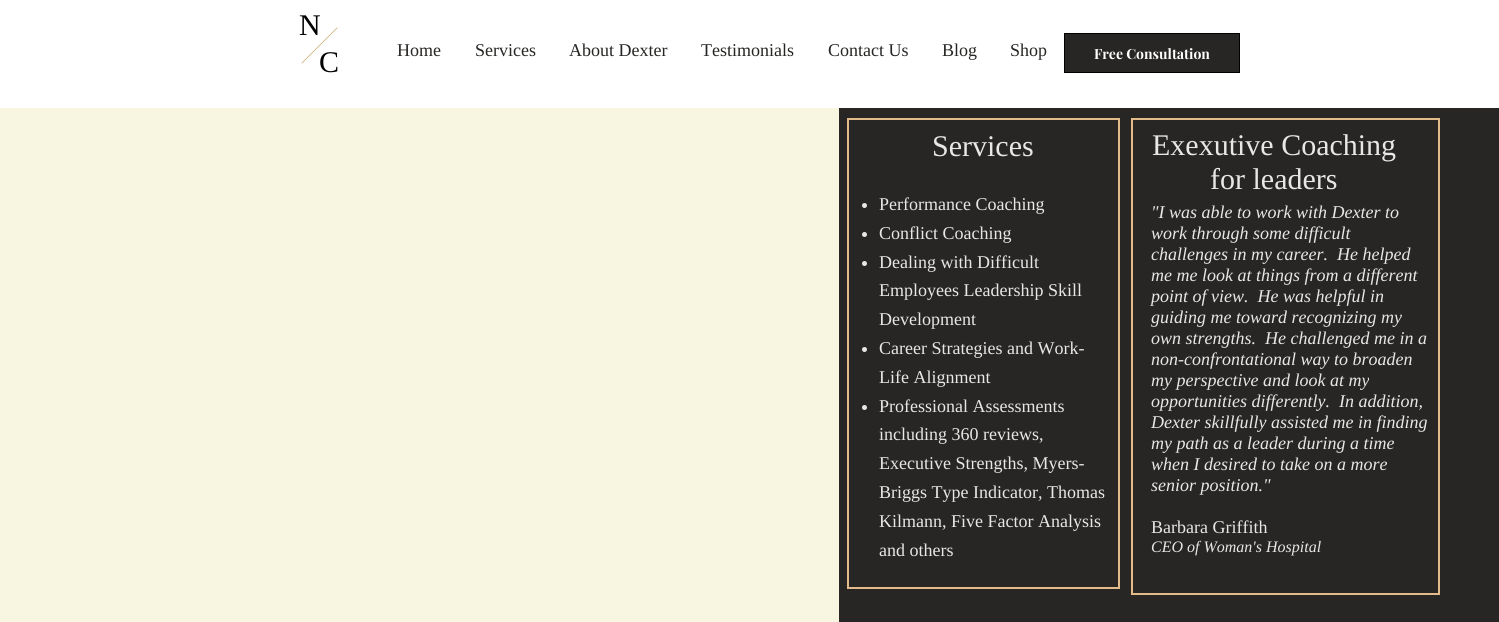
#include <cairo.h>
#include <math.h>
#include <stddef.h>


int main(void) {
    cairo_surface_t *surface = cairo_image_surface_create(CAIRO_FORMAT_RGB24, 1499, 622);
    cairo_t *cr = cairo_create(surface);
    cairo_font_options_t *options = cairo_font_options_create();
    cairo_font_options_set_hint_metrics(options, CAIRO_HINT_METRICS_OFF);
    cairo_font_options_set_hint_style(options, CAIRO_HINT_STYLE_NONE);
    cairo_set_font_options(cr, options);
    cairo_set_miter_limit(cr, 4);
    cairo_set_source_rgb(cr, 0.969, 0.961, 0.882);
    cairo_paint(cr);
    cairo_set_source_rgb(cr, 1, 1, 1);
    cairo_rectangle(cr, 0, 0, 1499, 108);
    cairo_fill(cr);
    cairo_select_font_face(cr, "Liberation Serif", CAIRO_FONT_SLANT_NORMAL, CAIRO_FONT_WEIGHT_NORMAL);
    cairo_set_font_size(cr, 30);
    cairo_set_source_rgb(cr, 0, 0, 0);
    cairo_move_to(cr, 299, 35);
    cairo_show_text(cr, "N");
    cairo_set_source_rgb(cr, 0.796, 0.631, 0.431);
    cairo_new_path(cr);
    cairo_move_to(cr, 337.5, 28);
    cairo_line_to(cr, 302, 63.5);
    cairo_line_to(cr, 301.5, 63);
    cairo_line_to(cr, 337, 27.5);
    cairo_close_path(cr);
    cairo_fill(cr);
    cairo_set_source_rgb(cr, 0, 0, 0);
    cairo_move_to(cr, 319, 72);
    cairo_show_text(cr, "C");
    cairo_set_font_size(cr, 18);
    cairo_set_source_rgb(cr, 0.153, 0.149, 0.141);
    cairo_move_to(cr, 397, 56);
    cairo_show_text(cr, "Home");
    cairo_move_to(cr, 475, 56);
    cairo_show_text(cr, "Services");
    cairo_move_to(cr, 569, 56);
    cairo_show_text(cr, "About Dexter");
    cairo_move_to(cr, 701, 56);
    cairo_show_text(cr, "Testimonials");
    cairo_move_to(cr, 828, 56);
    cairo_show_text(cr, "Contact Us");
    cairo_move_to(cr, 942, 56);
    cairo_show_text(cr, "Blog");
    cairo_move_to(cr, 1010, 56);
    cairo_show_text(cr, "Shop");
    cairo_rectangle(cr, 1064.5, 33.5, 175, 39);
    cairo_fill_preserve(cr);
    cairo_set_source_rgb(cr, 0, 0, 0);
    cairo_set_line_width(cr, 1);
    cairo_stroke(cr);
    cairo_select_font_face(cr, "Playfair Display", CAIRO_FONT_SLANT_NORMAL, CAIRO_FONT_WEIGHT_BOLD);
    cairo_set_font_size(cr, 14);
    cairo_set_source_rgb(cr, 1, 1, 1);
    cairo_move_to(cr, 1094, 59);
    cairo_show_text(cr, "Free Consultation");
    cairo_set_source_rgb(cr, 0.153, 0.149, 0.141);
    cairo_rectangle(cr, 839, 108, 660, 514);
    cairo_fill(cr);
    cairo_rectangle(cr, 848, 119, 271, 469);
    cairo_set_source_rgb(cr, 0.89, 0.733, 0.541);
    cairo_set_line_width(cr, 2);
    cairo_stroke(cr);
    cairo_select_font_face(cr, "Liberation Serif", CAIRO_FONT_SLANT_NORMAL, CAIRO_FONT_WEIGHT_NORMAL);
    cairo_set_font_size(cr, 30);
    cairo_set_source_rgb(cr, 0.91, 0.902, 0.902);
    cairo_move_to(cr, 932, 156);
    cairo_show_text(cr, "Services");
    cairo_rectangle(cr, 1132, 119, 307, 475);
    cairo_set_source_rgb(cr, 0.89, 0.733, 0.541);
    cairo_stroke(cr);
    cairo_set_source_rgb(cr, 0.91, 0.902, 0.902);
    cairo_move_to(cr, 1152, 155);
    cairo_show_text(cr, "Exexutive Coaching");
    cairo_move_to(cr, 1210, 189);
    cairo_show_text(cr, "for leaders");
    cairo_select_font_face(cr, "Liberation Serif", CAIRO_FONT_SLANT_ITALIC, CAIRO_FONT_WEIGHT_NORMAL);
    cairo_set_font_size(cr, 18);
    cairo_move_to(cr, 1151, 218);
    cairo_show_text(cr, "\"I was able to work with Dexter to");
    cairo_move_to(cr, 1151, 239);
    cairo_show_text(cr, "work through some difficult");
    cairo_move_to(cr, 1151, 260);
    cairo_show_text(cr, "challenges in my career.  He helped");
    cairo_move_to(cr, 1151, 281);
    cairo_show_text(cr, "me me look at things from a different");
    cairo_move_to(cr, 1151, 302);
    cairo_show_text(cr, "point of view.  He was helpful in");
    cairo_move_to(cr, 1151, 323);
    cairo_show_text(cr, "guiding me toward recognizing my");
    cairo_move_to(cr, 1151, 344);
    cairo_show_text(cr, "own strengths.  He challenged me in a");
    cairo_move_to(cr, 1151, 365);
    cairo_show_text(cr, "non-confrontational way to broaden");
    cairo_move_to(cr, 1151, 386);
    cairo_show_text(cr, "my perspective and look at my");
    cairo_move_to(cr, 1151, 407);
    cairo_show_text(cr, "opportunities differently.  In addition,");
    cairo_move_to(cr, 1151, 428);
    cairo_show_text(cr, "Dexter skillfully assisted me in finding");
    cairo_move_to(cr, 1151, 449);
    cairo_show_text(cr, "my path as a leader during a time");
    cairo_move_to(cr, 1151, 470);
    cairo_show_text(cr, "when I desired to take on a more");
    cairo_move_to(cr, 1151, 491);
    cairo_show_text(cr, "senior position.\"");
    cairo_select_font_face(cr, "Liberation Serif", CAIRO_FONT_SLANT_NORMAL, CAIRO_FONT_WEIGHT_NORMAL);
    cairo_move_to(cr, 1151, 533);
    cairo_show_text(cr, "Barbara Griffith");
    cairo_select_font_face(cr, "Liberation Serif", CAIRO_FONT_SLANT_ITALIC, CAIRO_FONT_WEIGHT_NORMAL);
    cairo_set_font_size(cr, 16);
    cairo_move_to(cr, 1151, 552);
    cairo_show_text(cr, "CEO of Woman's Hospital");
    cairo_new_path(cr);
    cairo_arc(cr, 864.5, 205.5, 2.5, 0, 2 * M_PI);
    cairo_fill(cr);
    cairo_select_font_face(cr, "Liberation Serif", CAIRO_FONT_SLANT_NORMAL, CAIRO_FONT_WEIGHT_NORMAL);
    cairo_set_font_size(cr, 18);
    cairo_move_to(cr, 879, 210);
    cairo_show_text(cr, "Performance Coaching");
    cairo_new_path(cr);
    cairo_arc(cr, 864.5, 234.5, 2.5, 0, 2 * M_PI);
    cairo_fill(cr);
    cairo_move_to(cr, 879, 239);
    cairo_show_text(cr, "Conflict Coaching");
    cairo_new_path(cr);
    cairo_arc(cr, 864.5, 263.5, 2.5, 0, 2 * M_PI);
    cairo_fill(cr);
    cairo_move_to(cr, 879, 268);
    cairo_show_text(cr, "Dealing with Difficult");
    cairo_move_to(cr, 879, 296);
    cairo_show_text(cr, "Employees Leadership Skill");
    cairo_move_to(cr, 879, 325);
    cairo_show_text(cr, "Development");
    cairo_new_path(cr);
    cairo_arc(cr, 864.5, 349.5, 2.5, 0, 2 * M_PI);
    cairo_fill(cr);
    cairo_move_to(cr, 879, 354);
    cairo_show_text(cr, "Career Strategies and Work-");
    cairo_move_to(cr, 879, 383);
    cairo_show_text(cr, "Life Alignment");
    cairo_new_path(cr);
    cairo_arc(cr, 864.5, 407.5, 2.5, 0, 2 * M_PI);
    cairo_fill(cr);
    cairo_move_to(cr, 879, 412);
    cairo_show_text(cr, "Professional Assessments");
    cairo_move_to(cr, 879, 440);
    cairo_show_text(cr, "including 360 reviews,");
    cairo_move_to(cr, 879, 469);
    cairo_show_text(cr, "Executive Strengths, Myers-");
    cairo_move_to(cr, 879, 498);
    cairo_show_text(cr, "Briggs Type Indicator, Thomas");
    cairo_move_to(cr, 879, 527);
    cairo_show_text(cr, "Kilmann, Five Factor Analysis");
    cairo_move_to(cr, 879, 556);
    cairo_show_text(cr, "and others");
    cairo_surface_write_to_png(surface, "page.png");
    cairo_font_options_destroy(options);
    cairo_destroy(cr);
    cairo_surface_destroy(surface);
    return 0;
}
